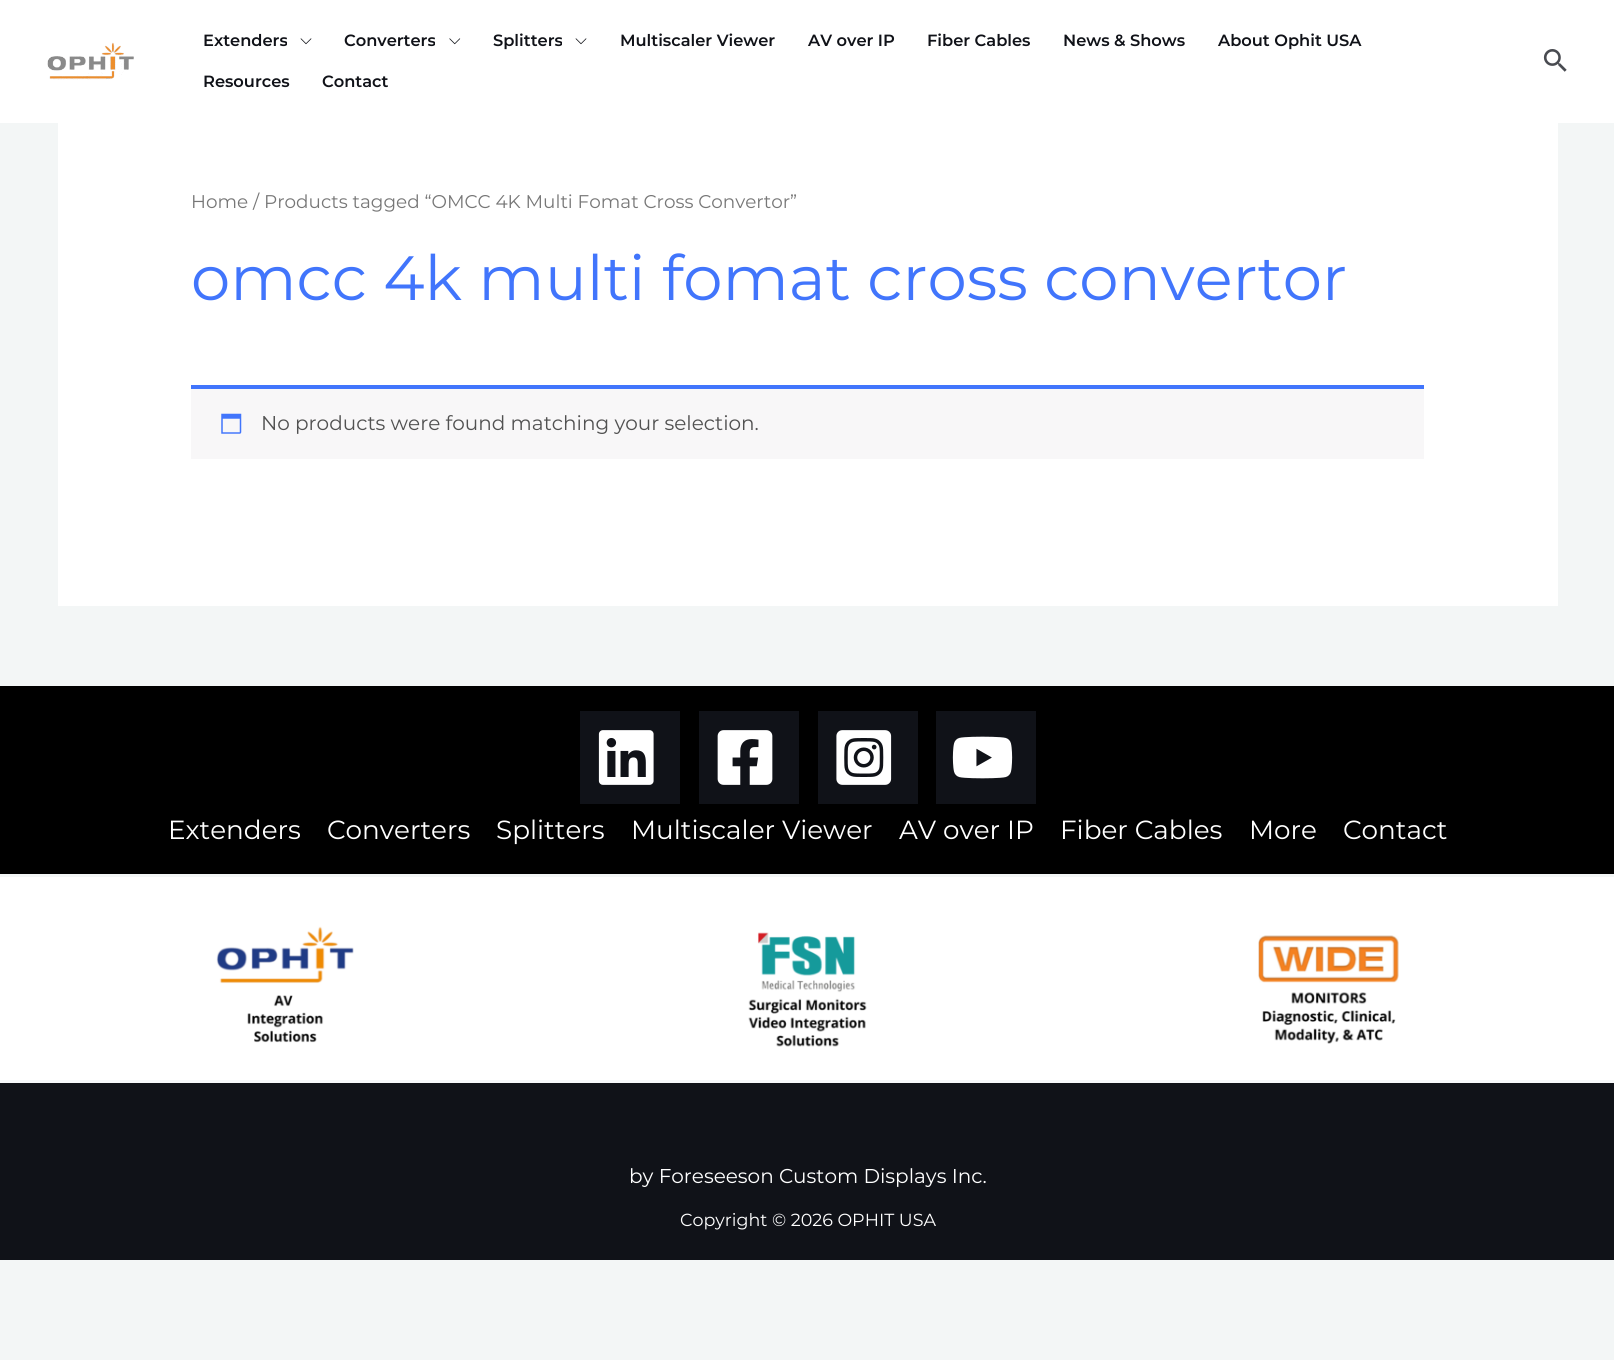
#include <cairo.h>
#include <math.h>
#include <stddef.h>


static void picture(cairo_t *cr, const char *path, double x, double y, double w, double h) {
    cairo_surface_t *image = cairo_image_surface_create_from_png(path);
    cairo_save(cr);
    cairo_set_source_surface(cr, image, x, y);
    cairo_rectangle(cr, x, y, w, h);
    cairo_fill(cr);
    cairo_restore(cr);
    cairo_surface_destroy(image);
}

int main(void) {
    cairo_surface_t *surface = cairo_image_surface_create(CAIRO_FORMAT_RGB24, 1614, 1360);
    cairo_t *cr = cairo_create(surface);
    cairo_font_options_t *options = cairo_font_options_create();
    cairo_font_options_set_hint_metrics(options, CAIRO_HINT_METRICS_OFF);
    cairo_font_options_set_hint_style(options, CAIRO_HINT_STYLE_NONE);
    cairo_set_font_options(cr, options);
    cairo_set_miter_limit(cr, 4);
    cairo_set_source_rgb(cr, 0.953, 0.961, 0.961);
    cairo_paint(cr);
    cairo_set_source_rgb(cr, 1, 1, 1);
    cairo_rectangle(cr, 0, 0, 1614, 123);
    cairo_fill(cr);
    picture(cr, "img1.png", 47, 42, 87, 38);
    cairo_select_font_face(cr, "Montserrat SemiBold", CAIRO_FONT_SLANT_NORMAL, CAIRO_FONT_WEIGHT_NORMAL);
    cairo_set_font_size(cr, 16.25);
    cairo_set_source_rgb(cr, 0.063, 0.071, 0.094);
    cairo_move_to(cr, 203, 46);
    cairo_show_text(cr, "Extenders");
    picture(cr, "img2.png", 300, 38, 12, 7);
    cairo_move_to(cr, 344, 46);
    cairo_show_text(cr, "Converters");
    picture(cr, "img3.png", 449, 38, 12, 7);
    cairo_move_to(cr, 493, 46);
    cairo_show_text(cr, "Splitters");
    picture(cr, "img2.png", 575, 38, 12, 7);
    cairo_move_to(cr, 620, 46);
    cairo_show_text(cr, "Multiscaler Viewer");
    cairo_move_to(cr, 808, 46);
    cairo_show_text(cr, "AV over IP");
    cairo_move_to(cr, 927, 46);
    cairo_show_text(cr, "Fiber Cables");
    cairo_move_to(cr, 1063, 46);
    cairo_show_text(cr, "News & Shows");
    cairo_move_to(cr, 1218, 46);
    cairo_show_text(cr, "About Ophit USA");
    cairo_move_to(cr, 203, 87);
    cairo_show_text(cr, "Resources");
    cairo_move_to(cr, 322, 87);
    cairo_show_text(cr, "Contact");
    picture(cr, "img4.png", 1543, 49, 24, 23);
    cairo_set_source_rgb(cr, 1, 1, 1);
    cairo_rectangle(cr, 58, 123, 1500, 483);
    cairo_fill(cr);
    cairo_select_font_face(cr, "Montserrat", CAIRO_FONT_SLANT_NORMAL, CAIRO_FONT_WEIGHT_NORMAL);
    cairo_set_font_size(cr, 18.4);
    cairo_set_source_rgb(cr, 0.467, 0.467, 0.467);
    cairo_move_to(cr, 191, 208);
    cairo_show_text(cr, "Home / Products tagged “OMCC 4K Multi Fomat Cross Convertor”");
    cairo_set_font_size(cr, 62.5);
    cairo_set_source_rgb(cr, 0.255, 0.459, 0.988);
    cairo_move_to(cr, 191, 300);
    cairo_show_text(cr, "omcc 4k multi fomat cross convertor");
    cairo_set_source_rgb(cr, 0.969, 0.965, 0.969);
    cairo_rectangle(cr, 191, 389, 1233, 70);
    cairo_fill(cr);
    cairo_set_source_rgb(cr, 0.255, 0.459, 0.988);
    cairo_rectangle(cr, 191, 385, 1233, 4);
    cairo_fill(cr);
    picture(cr, "img5.png", 221, 413, 21, 21);
    cairo_set_font_size(cr, 20);
    cairo_set_source_rgb(cr, 0.318, 0.318, 0.318);
    cairo_move_to(cr, 261, 430);
    cairo_show_text(cr, "No products were found matching your selection.");
    cairo_set_source_rgb(cr, 1, 1, 1);
    cairo_rectangle(cr, 0, 877, 1614, 203);
    cairo_fill(cr);
    cairo_set_source_rgb(cr, 0, 0, 0);
    cairo_rectangle(cr, 0, 686, 1614, 188);
    cairo_fill(cr);
    cairo_set_source_rgb(cr, 0.063, 0.071, 0.094);
    cairo_rectangle(cr, 580, 711, 100, 93);
    cairo_fill(cr);
    picture(cr, "img6.png", 598, 730, 56, 55);
    cairo_rectangle(cr, 699, 711, 100, 93);
    cairo_fill(cr);
    picture(cr, "img7.png", 717, 730, 56, 55);
    cairo_rectangle(cr, 818, 711, 100, 93);
    cairo_fill(cr);
    picture(cr, "img8.png", 836, 730, 56, 55);
    cairo_rectangle(cr, 936, 711, 100, 93);
    cairo_fill(cr);
    picture(cr, "img9.png", 952, 736, 61, 43);
    cairo_set_font_size(cr, 26.25);
    cairo_set_source_rgb(cr, 1, 1, 1);
    cairo_move_to(cr, 168, 839);
    cairo_show_text(cr, "Extenders");
    cairo_move_to(cr, 327, 839);
    cairo_show_text(cr, "Converters");
    cairo_move_to(cr, 496, 839);
    cairo_show_text(cr, "Splitters");
    cairo_move_to(cr, 631, 839);
    cairo_show_text(cr, "Multiscaler Viewer");
    cairo_move_to(cr, 899, 839);
    cairo_show_text(cr, "AV over IP");
    cairo_move_to(cr, 1060, 839);
    cairo_show_text(cr, "Fiber Cables");
    cairo_move_to(cr, 1249, 839);
    cairo_show_text(cr, "More");
    cairo_move_to(cr, 1343, 839);
    cairo_show_text(cr, "Contact");
    picture(cr, "img10.png", 216, 926, 138, 117);
    picture(cr, "img11.png", 748, 932, 119, 115);
    picture(cr, "img12.png", 1258, 935, 141, 109);
    cairo_set_source_rgb(cr, 0.063, 0.071, 0.094);
    cairo_rectangle(cr, 0, 1083, 1614, 177);
    cairo_fill(cr);
    cairo_set_source_rgb(cr, 0.965, 0.969, 0.973);
    cairo_rectangle(cr, 0, 1080, 1614, 3);
    cairo_fill(cr);
    cairo_set_font_size(cr, 20);
    cairo_set_source_rgb(cr, 1, 1, 1);
    cairo_move_to(cr, 629, 1183);
    cairo_show_text(cr, "by Foreseeson Custom Displays Inc.");
    cairo_set_font_size(cr, 17.5);
    cairo_move_to(cr, 680, 1226);
    cairo_show_text(cr, "Copyright © 2026 OPHIT USA");
    cairo_surface_write_to_png(surface, "page.png");
    cairo_font_options_destroy(options);
    cairo_destroy(cr);
    cairo_surface_destroy(surface);
    return 0;
}
